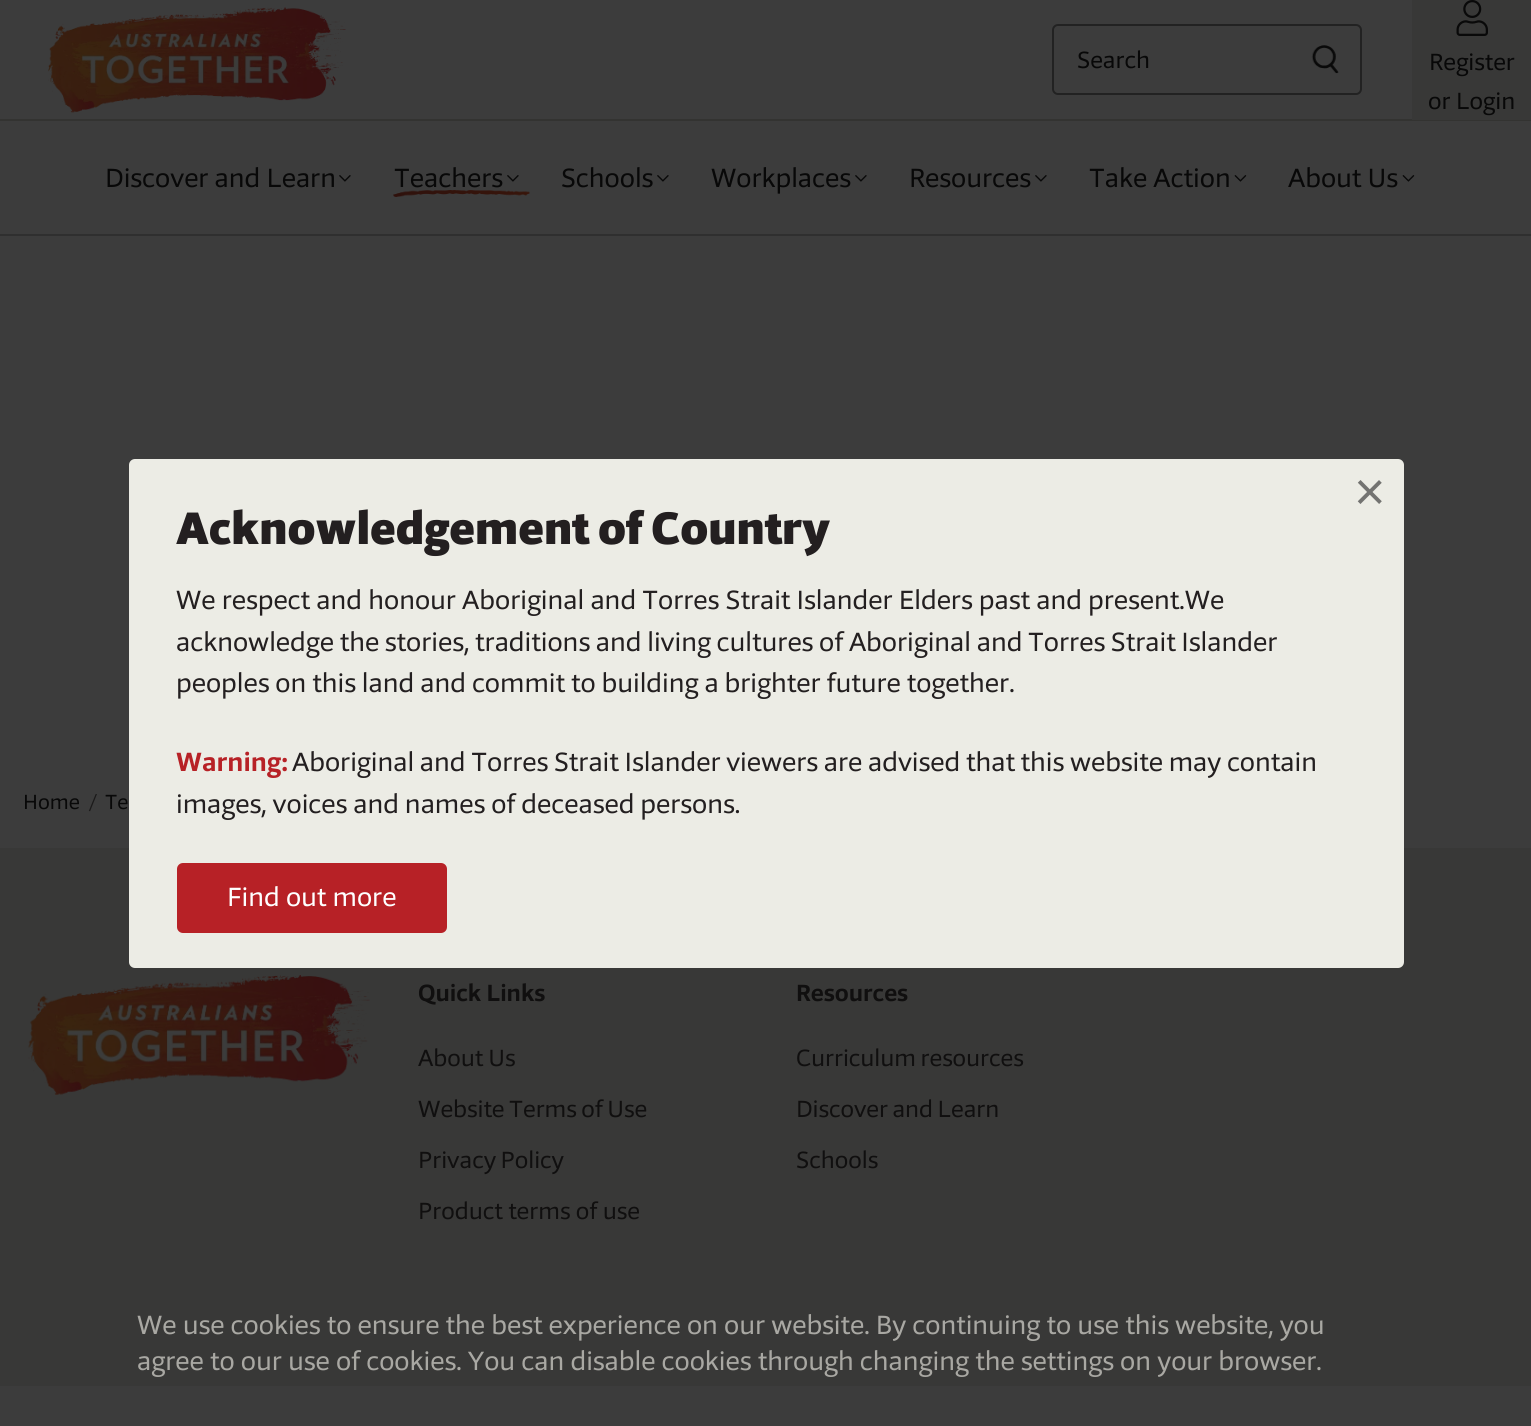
#include <cairo.h>
#include <math.h>
#include <stddef.h>


static void spaced_text(cairo_t *cr, double x, double y, const char *s, double letter, double word) {
    cairo_move_to(cr, x, y);
    while (*s) {
        char ch[5] = {0};
        int n = 0;
        do ch[n++] = *s++; while ((*s & 0xC0) == 0x80);
        cairo_show_text(cr, ch);
        cairo_rel_move_to(cr, letter + word * (*ch == ' '), 0);
    }
}

static void round_rect(cairo_t *cr, double x, double y, double w, double h, double r) {
    cairo_new_sub_path(cr);
    cairo_arc(cr, x + w - r, y + h - r, r, 0, M_PI / 2);
    cairo_arc(cr, x + r, y + h - r, r, M_PI / 2, M_PI);
    cairo_arc(cr, x + r, y + r, r, M_PI, 1.5 * M_PI);
    cairo_arc(cr, x + w - r, y + r, r, 1.5 * M_PI, 2 * M_PI);
    cairo_close_path(cr);
}

static void picture(cairo_t *cr, const char *path, double x, double y, double w, double h) {
    cairo_surface_t *image = cairo_image_surface_create_from_png(path);
    cairo_save(cr);
    cairo_set_source_surface(cr, image, x, y);
    cairo_rectangle(cr, x, y, w, h);
    cairo_fill(cr);
    cairo_restore(cr);
    cairo_surface_destroy(image);
}

int main(void) {
    cairo_surface_t *surface = cairo_image_surface_create(CAIRO_FORMAT_RGB24, 1531, 1426);
    cairo_t *cr = cairo_create(surface);
    cairo_font_options_t *options = cairo_font_options_create();
    cairo_font_options_set_hint_metrics(options, CAIRO_HINT_METRICS_OFF);
    cairo_font_options_set_hint_style(options, CAIRO_HINT_STYLE_NONE);
    cairo_set_font_options(cr, options);
    cairo_set_miter_limit(cr, 4);
    cairo_set_source_rgb(cr, 0.235, 0.235, 0.235);
    cairo_paint(cr);
    cairo_set_source_rgb(cr, 0.184, 0.184, 0.184);
    cairo_rectangle(cr, 0, 234, 1531, 2);
    cairo_fill(cr);
    picture(cr, "img1.png", 48, 7, 298, 106);
    round_rect(cr, 1053, 25, 308, 69, 5);
    cairo_set_source_rgb(cr, 0.133, 0.133, 0.133);
    cairo_stroke(cr);
    cairo_select_font_face(cr, "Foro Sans", CAIRO_FONT_SLANT_NORMAL, CAIRO_FONT_WEIGHT_NORMAL);
    cairo_set_font_size(cr, 24);
    cairo_set_source_rgb(cr, 0.035, 0.035, 0.035);
    cairo_move_to(cr, 1077, 68);
    cairo_show_text(cr, "Search");
    picture(cr, "img2.png", 1311, 45, 28, 29);
    cairo_set_source_rgb(cr, 0.2, 0.2, 0.192);
    cairo_rectangle(cr, 0, 119, 1531, 2);
    cairo_fill(cr);
    cairo_set_source_rgb(cr, 0.22, 0.22, 0.216);
    cairo_rectangle(cr, 1412, 0, 119, 120);
    cairo_fill(cr);
    picture(cr, "img3.png", 1456, 0, 32, 36);
    cairo_set_source_rgb(cr, 0.035, 0.035, 0.035);
    cairo_move_to(cr, 1429, 70);
    cairo_show_text(cr, "Register");
    cairo_move_to(cr, 1428, 109);
    cairo_show_text(cr, "or Login");
    cairo_set_font_size(cr, 27);
    cairo_move_to(cr, 105, 187);
    cairo_show_text(cr, "Discover and Learn");
    picture(cr, "img4.png", 339, 175, 12, 7);
    cairo_move_to(cr, 394, 187);
    cairo_show_text(cr, "Teachers");
    picture(cr, "img4.png", 507, 175, 12, 7);
    picture(cr, "img5.png", 393, 190, 137, 7);
    cairo_move_to(cr, 561, 187);
    cairo_show_text(cr, "Schools");
    picture(cr, "img4.png", 657, 175, 12, 7);
    cairo_move_to(cr, 711, 187);
    cairo_show_text(cr, "Workplaces");
    picture(cr, "img4.png", 855, 175, 12, 7);
    cairo_move_to(cr, 909, 187);
    cairo_show_text(cr, "Resources");
    picture(cr, "img4.png", 1035, 175, 12, 7);
    cairo_move_to(cr, 1089, 187);
    cairo_show_text(cr, "Take Action");
    picture(cr, "img6.png", 1234, 175, 13, 7);
    cairo_move_to(cr, 1288, 187);
    cairo_show_text(cr, "About Us");
    picture(cr, "img6.png", 1402, 175, 13, 7);
    cairo_set_font_size(cr, 21);
    cairo_move_to(cr, 23, 809);
    cairo_show_text(cr, "Home");
    cairo_set_source_rgb(cr, 0.106, 0.102, 0.102);
    cairo_move_to(cr, 89, 809);
    cairo_show_text(cr, "/");
    cairo_set_source_rgb(cr, 0.035, 0.035, 0.035);
    cairo_move_to(cr, 105, 809);
    cairo_show_text(cr, "Te");
    cairo_set_source_rgb(cr, 0.22, 0.22, 0.216);
    cairo_rectangle(cr, 0, 848, 1531, 538);
    cairo_fill(cr);
    picture(cr, "img7.png", 28, 975, 342, 120);
    cairo_select_font_face(cr, "Foro Sans", CAIRO_FONT_SLANT_NORMAL, CAIRO_FONT_WEIGHT_BOLD);
    cairo_set_font_size(cr, 24);
    cairo_set_source_rgb(cr, 0.063, 0.059, 0.059);
    cairo_move_to(cr, 418, 1001);
    cairo_show_text(cr, "Quick Links");
    cairo_select_font_face(cr, "Foro Sans", CAIRO_FONT_SLANT_NORMAL, CAIRO_FONT_WEIGHT_NORMAL);
    spaced_text(cr, 418, 1066, "About Us", 0, -0.5);
    spaced_text(cr, 418, 1117, "Website Terms of Use", 0, -1);
    spaced_text(cr, 418, 1168, "Privacy Policy", 0, -1);
    cairo_move_to(cr, 418, 1219);
    cairo_show_text(cr, "Product terms of use");
    cairo_select_font_face(cr, "Foro Sans", CAIRO_FONT_SLANT_NORMAL, CAIRO_FONT_WEIGHT_BOLD);
    cairo_move_to(cr, 796, 1001);
    cairo_show_text(cr, "Resources");
    cairo_select_font_face(cr, "Foro Sans", CAIRO_FONT_SLANT_NORMAL, CAIRO_FONT_WEIGHT_NORMAL);
    spaced_text(cr, 796, 1066, "Curriculum resources", 0, -1);
    spaced_text(cr, 796, 1117, "Discover and Learn", 0, -1);
    cairo_move_to(cr, 796, 1168);
    cairo_show_text(cr, "Schools");
    cairo_set_source_rgb(cr, 0.922, 0.922, 0.898);
    round_rect(cr, 129, 459, 1275, 509, 6);
    cairo_fill(cr);
    cairo_select_font_face(cr, "Liberation Sans", CAIRO_FONT_SLANT_NORMAL, CAIRO_FONT_WEIGHT_NORMAL);
    cairo_set_font_size(cr, 54);
    cairo_set_source_rgb(cr, 0.451, 0.451, 0.443);
    cairo_move_to(cr, 1354, 510);
    cairo_show_text(cr, "×");
    cairo_select_font_face(cr, "Foro Sans Black", CAIRO_FONT_SLANT_NORMAL, CAIRO_FONT_WEIGHT_NORMAL);
    cairo_set_font_size(cr, 46.5);
    cairo_set_source_rgb(cr, 0.137, 0.122, 0.125);
    spaced_text(cr, 176, 544, "Acknowledgement of Country", 0, -2);
    cairo_select_font_face(cr, "Foro Sans", CAIRO_FONT_SLANT_NORMAL, CAIRO_FONT_WEIGHT_NORMAL);
    cairo_set_font_size(cr, 27);
    cairo_move_to(cr, 176, 609);
    cairo_show_text(cr, "We respect and honour Aboriginal and Torres Strait Islander Elders past and present.We");
    spaced_text(cr, 176, 651, "acknowledge the stories, traditions and living cultures of Aboriginal and Torres Strait Islander", 0, -0.5);
    spaced_text(cr, 176, 692, "peoples on this land and commit to building a brighter future together.", 0, -0.25);
    cairo_select_font_face(cr, "Foro Sans", CAIRO_FONT_SLANT_NORMAL, CAIRO_FONT_WEIGHT_BOLD);
    cairo_set_source_rgb(cr, 0.718, 0.129, 0.149);
    cairo_move_to(cr, 176, 771);
    cairo_show_text(cr, "Warning:");
    cairo_select_font_face(cr, "Foro Sans", CAIRO_FONT_SLANT_NORMAL, CAIRO_FONT_WEIGHT_NORMAL);
    cairo_set_source_rgb(cr, 0.137, 0.122, 0.125);
    spaced_text(cr, 292, 771, "Aboriginal and Torres Strait Islander viewers are advised that this website may contain", 0, -0.5);
    spaced_text(cr, 176, 813, "images, voices and names of deceased persons.", 0, -0.25);
    cairo_set_source_rgb(cr, 0.718, 0.129, 0.149);
    round_rect(cr, 177, 863, 270, 70, 6);
    cairo_fill(cr);
    cairo_set_source_rgb(cr, 1, 1, 1);
    cairo_move_to(cr, 227, 906);
    cairo_show_text(cr, "Find out more");
    cairo_set_source_rgb(cr, 0.663, 0.659, 0.639);
    cairo_move_to(cr, 137, 1334);
    cairo_show_text(cr, "We use cookies to ensure the best experience on our website. By continuing to use this website, you");
    cairo_move_to(cr, 137, 1370);
    cairo_show_text(cr, "agree to our use of cookies. You can disable cookies through changing the settings on your browser.");
    cairo_surface_write_to_png(surface, "page.png");
    cairo_font_options_destroy(options);
    cairo_destroy(cr);
    cairo_surface_destroy(surface);
    return 0;
}
